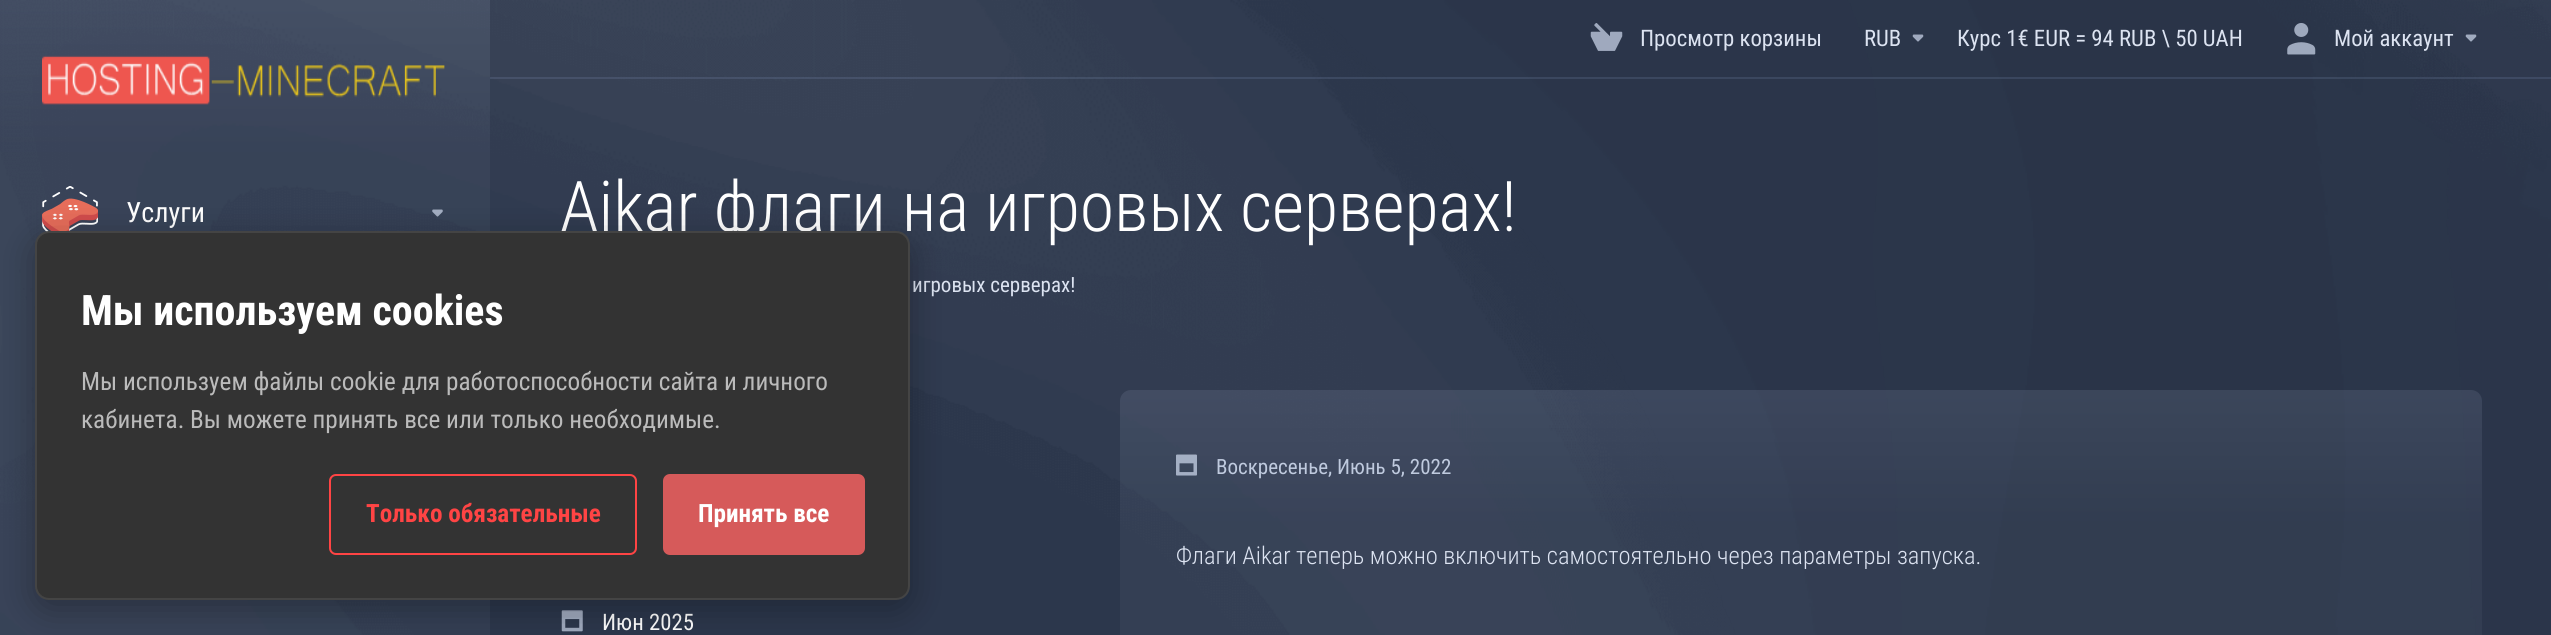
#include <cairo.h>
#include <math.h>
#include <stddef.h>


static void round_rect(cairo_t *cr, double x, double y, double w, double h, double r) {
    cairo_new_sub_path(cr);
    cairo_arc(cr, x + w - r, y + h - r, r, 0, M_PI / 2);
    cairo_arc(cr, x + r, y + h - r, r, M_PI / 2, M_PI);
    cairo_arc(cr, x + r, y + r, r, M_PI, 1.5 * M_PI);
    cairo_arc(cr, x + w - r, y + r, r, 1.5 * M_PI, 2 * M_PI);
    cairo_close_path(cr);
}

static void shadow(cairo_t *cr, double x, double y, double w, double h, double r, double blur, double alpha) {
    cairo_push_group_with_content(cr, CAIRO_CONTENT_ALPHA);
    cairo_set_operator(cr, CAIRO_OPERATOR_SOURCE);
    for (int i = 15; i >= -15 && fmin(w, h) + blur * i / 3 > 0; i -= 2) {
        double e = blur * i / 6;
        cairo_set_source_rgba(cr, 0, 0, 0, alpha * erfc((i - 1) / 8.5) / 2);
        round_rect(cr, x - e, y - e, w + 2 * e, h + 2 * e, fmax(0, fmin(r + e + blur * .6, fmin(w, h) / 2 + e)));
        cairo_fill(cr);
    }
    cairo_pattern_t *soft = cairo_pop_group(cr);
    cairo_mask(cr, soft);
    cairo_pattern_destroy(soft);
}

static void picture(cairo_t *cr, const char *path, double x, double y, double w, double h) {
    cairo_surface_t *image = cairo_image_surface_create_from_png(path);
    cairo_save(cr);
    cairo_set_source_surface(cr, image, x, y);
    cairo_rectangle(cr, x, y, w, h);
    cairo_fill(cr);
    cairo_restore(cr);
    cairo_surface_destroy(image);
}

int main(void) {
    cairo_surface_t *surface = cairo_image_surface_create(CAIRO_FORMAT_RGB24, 2551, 635);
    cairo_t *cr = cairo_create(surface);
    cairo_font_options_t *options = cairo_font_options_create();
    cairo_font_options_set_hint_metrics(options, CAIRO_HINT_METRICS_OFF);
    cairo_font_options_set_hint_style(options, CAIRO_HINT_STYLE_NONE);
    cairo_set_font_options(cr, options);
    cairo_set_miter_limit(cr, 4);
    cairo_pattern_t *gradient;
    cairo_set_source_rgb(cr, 0.173, 0.216, 0.298);
    cairo_paint(cr);
    picture(cr, "img1.png", 0, 0, 2551, 635);
    gradient = cairo_pattern_create_linear(245, 0, 245, 635);
    cairo_pattern_add_color_stop_rgba(gradient, 0, 0.592, 0.643, 0.745, 0.16);
    cairo_pattern_add_color_stop_rgba(gradient, 0.24, 0.365, 0.412, 0.502, 0.16);
    cairo_pattern_add_color_stop_rgba(gradient, 1, 0.365, 0.412, 0.502, 0.16);
    cairo_set_source(cr, gradient);
    cairo_pattern_destroy(gradient);
    cairo_rectangle(cr, 0, 0, 490, 635);
    cairo_fill(cr);
    picture(cr, "img2.png", 42, 55, 403, 50);
    picture(cr, "img3.png", 42, 186, 56, 46);
    cairo_select_font_face(cr, "Roboto Condensed", CAIRO_FONT_SLANT_NORMAL, CAIRO_FONT_WEIGHT_NORMAL);
    cairo_set_font_size(cr, 28);
    cairo_set_source_rgb(cr, 1, 1, 1);
    cairo_move_to(cr, 126, 222);
    cairo_show_text(cr, "Услуги");
    picture(cr, "img4.png", 432, 209, 11, 8);
    cairo_set_source_rgba(cr, 0.698, 0.8, 1, 0.12);
    cairo_rectangle(cr, 490, 77, 2061, 2);
    cairo_fill(cr);
    picture(cr, "img5.png", 1590, 23, 33, 28);
    cairo_set_font_size(cr, 22.75);
    cairo_set_source_rgb(cr, 0.863, 0.89, 0.945);
    cairo_move_to(cr, 1640, 46);
    cairo_show_text(cr, "Просмотр корзины");
    cairo_move_to(cr, 1864, 46);
    cairo_show_text(cr, "RUB");
    picture(cr, "img6.png", 1912, 34, 12, 8);
    cairo_move_to(cr, 1957, 46);
    cairo_show_text(cr, "Курс 1€ EUR = 94 RUB \\ 50 UAH");
    picture(cr, "img7.png", 2287, 23, 29, 32);
    cairo_move_to(cr, 2334, 46);
    cairo_show_text(cr, "Мой аккаунт");
    picture(cr, "img8.png", 2465, 34, 12, 8);
    cairo_select_font_face(cr, "Roboto Condensed Light", CAIRO_FONT_SLANT_NORMAL, CAIRO_FONT_WEIGHT_NORMAL);
    cairo_set_font_size(cr, 70);
    cairo_set_source_rgb(cr, 1, 1, 1);
    cairo_move_to(cr, 560, 231);
    cairo_show_text(cr, "Aikar флаги на игровых серверах!");
    cairo_select_font_face(cr, "Roboto Condensed", CAIRO_FONT_SLANT_NORMAL, CAIRO_FONT_WEIGHT_NORMAL);
    cairo_set_font_size(cr, 21);
    cairo_set_source_rgb(cr, 0.863, 0.89, 0.945);
    cairo_move_to(cr, 912, 292);
    cairo_show_text(cr, "игровых серверах!");
    gradient = cairo_pattern_create_linear(1801, 390, 1801, 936);
    cairo_pattern_add_color_stop_rgba(gradient, 0, 0.592, 0.643, 0.745, 0.16);
    cairo_pattern_add_color_stop_rgba(gradient, 0.24, 0.365, 0.412, 0.502, 0.16);
    cairo_pattern_add_color_stop_rgba(gradient, 1, 0.365, 0.412, 0.502, 0.16);
    cairo_set_source(cr, gradient);
    cairo_pattern_destroy(gradient);
    round_rect(cr, 1120, 390, 1362, 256, 11);
    cairo_fill(cr);
    picture(cr, "img9.png", 1176, 454, 21, 22);
    cairo_set_source_rgb(cr, 0.749, 0.792, 0.871);
    cairo_move_to(cr, 1216, 474);
    cairo_show_text(cr, "Воскресенье, Июнь 5, 2022");
    cairo_select_font_face(cr, "Roboto Condensed Light", CAIRO_FONT_SLANT_NORMAL, CAIRO_FONT_WEIGHT_NORMAL);
    cairo_set_font_size(cr, 24.5);
    cairo_set_source_rgb(cr, 0.863, 0.89, 0.945);
    cairo_move_to(cr, 1176, 564);
    cairo_show_text(cr, "Флаги Aikar теперь можно включить самостоятельно через параметры запуска.");
    picture(cr, "img10.png", 561, 610, 22, 22);
    cairo_select_font_face(cr, "Roboto Condensed", CAIRO_FONT_SLANT_NORMAL, CAIRO_FONT_WEIGHT_NORMAL);
    cairo_set_font_size(cr, 22.75);
    cairo_set_source_rgb(cr, 1, 1, 1);
    cairo_move_to(cr, 602, 630);
    cairo_show_text(cr, "Июн 2025");
    cairo_set_source_rgb(cr, 0, 0, 0);
    shadow(cr, 35, 240, 875, 369, 14, 17.5, 0.3);
    cairo_set_source_rgb(cr, 0.2, 0.2, 0.2);
    round_rect(cr, 36, 232, 873, 367, 13);
    cairo_fill_preserve(cr);
    cairo_set_source_rgb(cr, 0.267, 0.267, 0.267);
    cairo_stroke(cr);
    cairo_select_font_face(cr, "Roboto Condensed", CAIRO_FONT_SLANT_NORMAL, CAIRO_FONT_WEIGHT_BOLD);
    cairo_set_font_size(cr, 42);
    cairo_set_source_rgb(cr, 1, 1, 1);
    cairo_move_to(cr, 81, 325);
    cairo_show_text(cr, "Мы используем cookies");
    cairo_select_font_face(cr, "Roboto Condensed", CAIRO_FONT_SLANT_NORMAL, CAIRO_FONT_WEIGHT_NORMAL);
    cairo_set_font_size(cr, 25.2);
    cairo_set_source_rgb(cr, 0.733, 0.733, 0.733);
    cairo_move_to(cr, 81, 390);
    cairo_show_text(cr, "Мы используем файлы cookie для работоспособности сайта и личного");
    cairo_move_to(cr, 81, 428);
    cairo_show_text(cr, "кабинета. Вы можете принять все или только необходимые.");
    round_rect(cr, 330, 475, 306, 79, 6);
    cairo_set_source_rgb(cr, 1, 0.267, 0.267);
    cairo_stroke(cr);
    cairo_select_font_face(cr, "Roboto Condensed", CAIRO_FONT_SLANT_NORMAL, CAIRO_FONT_WEIGHT_BOLD);
    cairo_move_to(cr, 366, 522);
    cairo_show_text(cr, "Только обязательные");
    cairo_set_source_rgb(cr, 0.839, 0.353, 0.353);
    round_rect(cr, 663, 474, 202, 81, 7);
    cairo_fill(cr);
    cairo_set_source_rgb(cr, 1, 1, 1);
    cairo_move_to(cr, 698, 522);
    cairo_show_text(cr, "Принять все");
    cairo_surface_write_to_png(surface, "page.png");
    cairo_font_options_destroy(options);
    cairo_destroy(cr);
    cairo_surface_destroy(surface);
    return 0;
}
